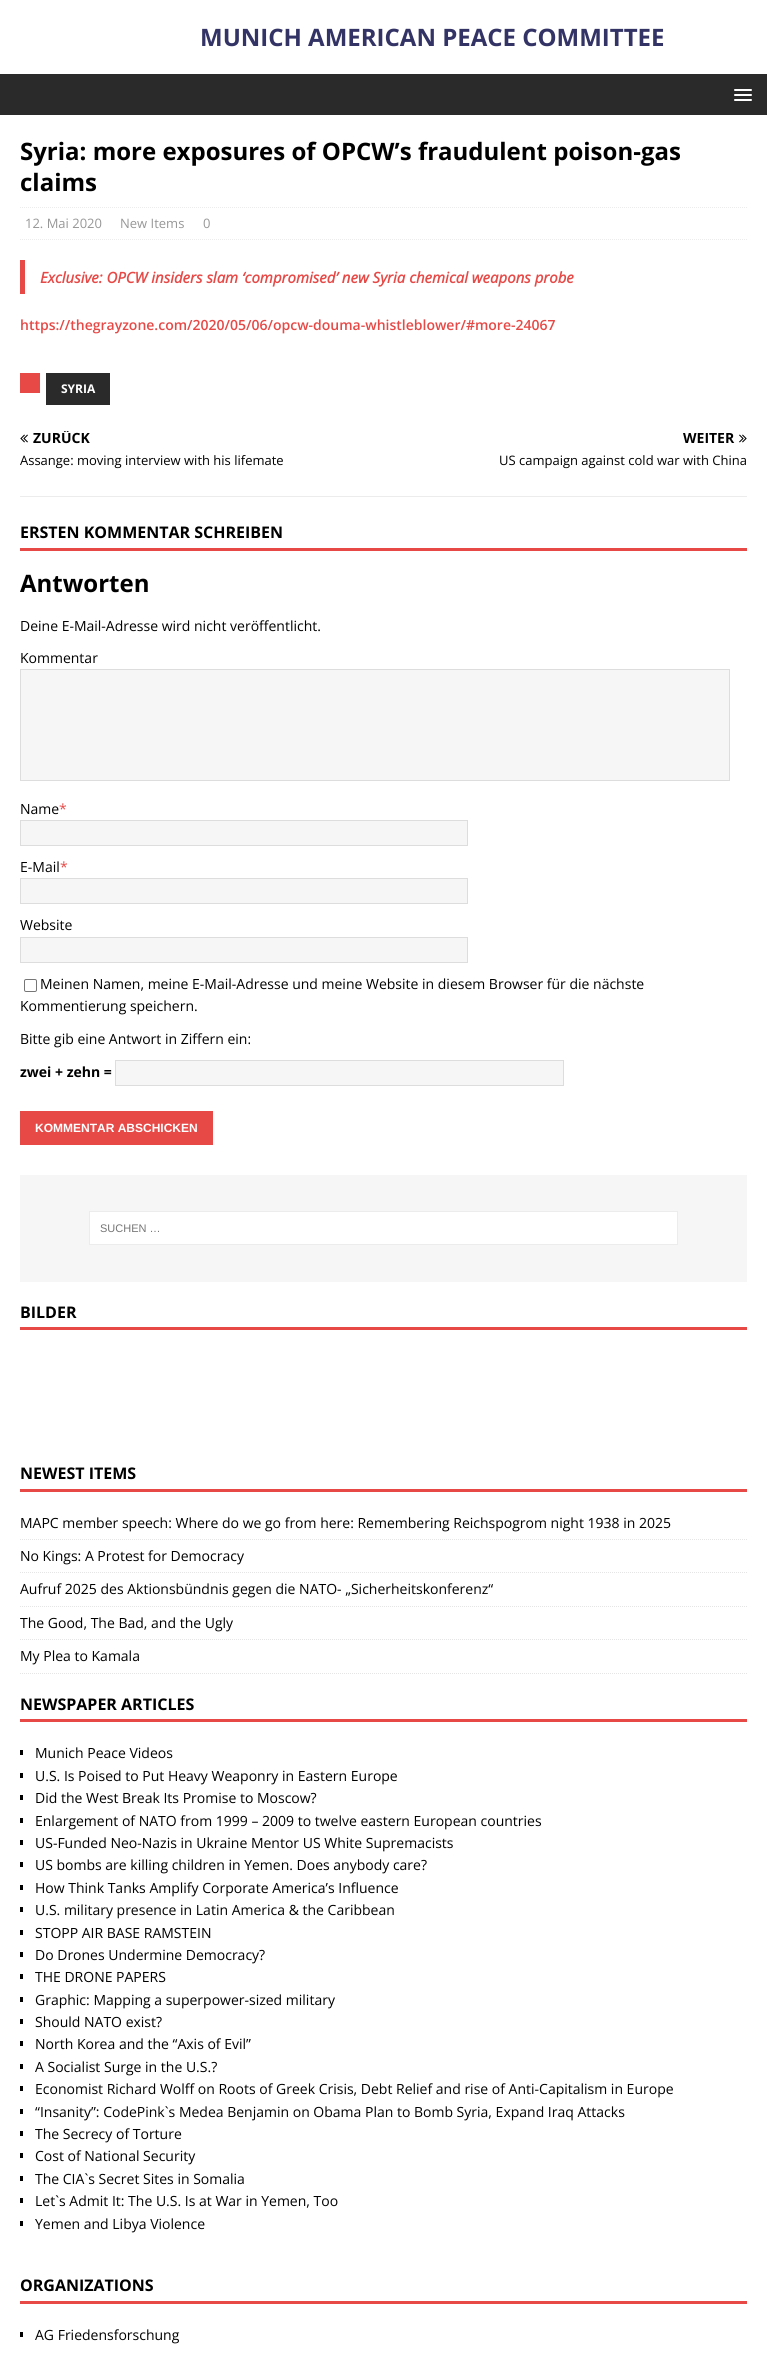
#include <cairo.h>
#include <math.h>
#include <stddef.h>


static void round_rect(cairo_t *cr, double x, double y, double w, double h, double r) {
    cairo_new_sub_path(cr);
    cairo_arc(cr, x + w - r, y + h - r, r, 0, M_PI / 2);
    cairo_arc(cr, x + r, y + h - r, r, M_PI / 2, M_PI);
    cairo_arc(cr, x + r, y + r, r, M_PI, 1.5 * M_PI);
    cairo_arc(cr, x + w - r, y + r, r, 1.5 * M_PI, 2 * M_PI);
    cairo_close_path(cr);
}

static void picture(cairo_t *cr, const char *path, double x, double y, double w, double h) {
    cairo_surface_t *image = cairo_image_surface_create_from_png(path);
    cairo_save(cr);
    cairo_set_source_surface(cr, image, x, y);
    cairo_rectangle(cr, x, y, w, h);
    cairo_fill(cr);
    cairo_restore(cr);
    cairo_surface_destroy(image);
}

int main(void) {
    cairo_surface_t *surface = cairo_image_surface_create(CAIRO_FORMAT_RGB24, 767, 2354);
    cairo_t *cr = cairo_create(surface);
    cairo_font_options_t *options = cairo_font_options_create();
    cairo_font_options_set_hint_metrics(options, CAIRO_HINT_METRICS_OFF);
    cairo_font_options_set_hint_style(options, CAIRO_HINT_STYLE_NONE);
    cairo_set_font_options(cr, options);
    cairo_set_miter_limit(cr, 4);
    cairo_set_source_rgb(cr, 1, 1, 1);
    cairo_paint(cr);
    cairo_select_font_face(cr, "Open Sans", CAIRO_FONT_SLANT_NORMAL, CAIRO_FONT_WEIGHT_BOLD);
    cairo_set_font_size(cr, 24);
    cairo_set_source_rgb(cr, 0.2, 0.2, 0.4);
    cairo_move_to(cr, 200, 46);
    cairo_show_text(cr, "MUNICH AMERICAN PEACE COMMITTEE");
    cairo_set_source_rgb(cr, 0.165, 0.165, 0.165);
    cairo_rectangle(cr, 0, 74, 767, 41);
    cairo_fill(cr);
    cairo_set_source_rgb(cr, 1, 1, 1);
    round_rect(cr, 734, 89, 18, 2, 1);
    cairo_fill(cr);
    round_rect(cr, 734, 94, 18, 2, 1);
    cairo_fill(cr);
    round_rect(cr, 734, 99, 18, 2, 1);
    cairo_fill(cr);
    cairo_set_source_rgb(cr, 0, 0, 0);
    cairo_move_to(cr, 20, 160);
    cairo_show_text(cr, "Syria: more exposures of OPCW’s fraudulent poison-gas");
    cairo_move_to(cr, 20, 191);
    cairo_show_text(cr, "claims");
    cairo_new_path(cr);
    cairo_move_to(cr, 20, 207.5);
    cairo_line_to(cr, 747, 207.5);
    cairo_set_source_rgb(cr, 0.922, 0.922, 0.922);
    cairo_set_line_width(cr, 1);
    cairo_set_dash(cr, (double[]){1, 1}, 2, 0);
    cairo_stroke(cr);
    cairo_new_path(cr);
    cairo_move_to(cr, 20, 239.5);
    cairo_line_to(cr, 747, 239.5);
    cairo_stroke(cr);
    cairo_select_font_face(cr, "Open Sans", CAIRO_FONT_SLANT_NORMAL, CAIRO_FONT_WEIGHT_NORMAL);
    cairo_set_font_size(cr, 13);
    cairo_set_source_rgb(cr, 0.592, 0.592, 0.592);
    cairo_move_to(cr, 25, 228);
    cairo_show_text(cr, "12. Mai 2020");
    cairo_move_to(cr, 120, 228);
    cairo_show_text(cr, "New Items");
    cairo_move_to(cr, 203, 228);
    cairo_show_text(cr, "0");
    cairo_set_source_rgb(cr, 0.902, 0.286, 0.275);
    cairo_rectangle(cr, 20, 260, 5, 34);
    cairo_fill(cr);
    cairo_select_font_face(cr, "Open Sans", CAIRO_FONT_SLANT_ITALIC, CAIRO_FONT_WEIGHT_BOLD);
    cairo_set_font_size(cr, 15);
    cairo_move_to(cr, 40, 283);
    cairo_show_text(cr, "Exclusive: OPCW insiders slam ‘compromised’ new Syria chemical weapons probe");
    cairo_select_font_face(cr, "Open Sans SemiBold", CAIRO_FONT_SLANT_NORMAL, CAIRO_FONT_WEIGHT_NORMAL);
    cairo_set_font_size(cr, 14);
    cairo_move_to(cr, 20, 330);
    cairo_show_text(cr, "https://thegrayzone.com/2020/05/06/opcw-douma-whistleblower/#more-24067");
    cairo_rectangle(cr, 20, 373, 20, 20);
    cairo_fill(cr);
    cairo_set_source_rgb(cr, 0.165, 0.165, 0.165);
    cairo_rectangle(cr, 46, 373, 64, 32);
    cairo_fill(cr);
    cairo_select_font_face(cr, "Open Sans", CAIRO_FONT_SLANT_NORMAL, CAIRO_FONT_WEIGHT_BOLD);
    cairo_set_font_size(cr, 12);
    cairo_set_source_rgb(cr, 1, 1, 1);
    cairo_move_to(cr, 61, 393);
    cairo_show_text(cr, "SYRIA");
    cairo_set_source_rgb(cr, 0.922, 0.922, 0.922);
    cairo_rectangle(cr, 20, 496, 727, 1);
    cairo_fill(cr);
    picture(cr, "img1.png", 20, 434, 8, 9);
    cairo_save(cr);
    cairo_rectangle(cr, 20, 431, 354, 14);
    cairo_clip(cr);
    cairo_set_font_size(cr, 14);
    cairo_set_source_rgb(cr, 0, 0, 0);
    cairo_move_to(cr, 33, 443);
    cairo_show_text(cr, "ZURÜCK");
    cairo_restore(cr);
    cairo_select_font_face(cr, "Open Sans", CAIRO_FONT_SLANT_NORMAL, CAIRO_FONT_WEIGHT_NORMAL);
    cairo_set_font_size(cr, 13);
    cairo_set_source_rgb(cr, 0, 0, 0);
    cairo_move_to(cr, 20, 465);
    cairo_show_text(cr, "Assange: moving interview with his lifemate");
    cairo_select_font_face(cr, "Open Sans", CAIRO_FONT_SLANT_NORMAL, CAIRO_FONT_WEIGHT_BOLD);
    cairo_set_font_size(cr, 14);
    cairo_move_to(cr, 683, 443);
    cairo_show_text(cr, "WEITER");
    picture(cr, "img2.png", 739, 434, 8, 9);
    cairo_select_font_face(cr, "Open Sans", CAIRO_FONT_SLANT_NORMAL, CAIRO_FONT_WEIGHT_NORMAL);
    cairo_set_font_size(cr, 13);
    cairo_move_to(cr, 499, 465);
    cairo_show_text(cr, "US campaign against cold war with China");
    cairo_set_source_rgb(cr, 0.902, 0.286, 0.275);
    cairo_rectangle(cr, 20, 548, 727, 3);
    cairo_fill(cr);
    cairo_select_font_face(cr, "Open Sans", CAIRO_FONT_SLANT_NORMAL, CAIRO_FONT_WEIGHT_BOLD);
    cairo_set_font_size(cr, 16);
    cairo_set_source_rgb(cr, 0, 0, 0);
    cairo_move_to(cr, 20, 538);
    cairo_show_text(cr, "ERSTEN KOMMENTAR SCHREIBEN");
    cairo_set_font_size(cr, 24);
    cairo_move_to(cr, 20, 592);
    cairo_show_text(cr, "Antworten");
    cairo_select_font_face(cr, "Open Sans", CAIRO_FONT_SLANT_NORMAL, CAIRO_FONT_WEIGHT_NORMAL);
    cairo_set_font_size(cr, 14);
    cairo_move_to(cr, 20, 631);
    cairo_show_text(cr, "Deine E-Mail-Adresse wird nicht veröffentlicht.");
    cairo_move_to(cr, 20, 663);
    cairo_show_text(cr, "Kommentar");
    cairo_set_source_rgb(cr, 0.961, 0.961, 0.961);
    cairo_rectangle(cr, 20.5, 669.5, 709, 111);
    cairo_fill_preserve(cr);
    cairo_set_source_rgb(cr, 0.867, 0.867, 0.867);
    cairo_set_dash(cr, NULL, 0, 0);
    cairo_stroke(cr);
    cairo_set_source_rgb(cr, 0, 0, 0);
    cairo_move_to(cr, 20, 814);
    cairo_show_text(cr, "Name");
    cairo_set_source_rgb(cr, 0.902, 0.286, 0.275);
    cairo_move_to(cr, 59, 814);
    cairo_show_text(cr, "*");
    cairo_set_source_rgb(cr, 0.961, 0.961, 0.961);
    cairo_rectangle(cr, 20.5, 820.5, 447, 25);
    cairo_fill_preserve(cr);
    cairo_set_source_rgb(cr, 0.867, 0.867, 0.867);
    cairo_stroke(cr);
    cairo_set_source_rgb(cr, 0, 0, 0);
    cairo_move_to(cr, 20, 872);
    cairo_show_text(cr, "E-Mail");
    cairo_set_source_rgb(cr, 0.902, 0.286, 0.275);
    cairo_move_to(cr, 60, 872);
    cairo_show_text(cr, "*");
    cairo_set_source_rgb(cr, 0.961, 0.961, 0.961);
    cairo_rectangle(cr, 20.5, 878.5, 447, 25);
    cairo_fill_preserve(cr);
    cairo_set_source_rgb(cr, 0.867, 0.867, 0.867);
    cairo_stroke(cr);
    cairo_set_source_rgb(cr, 0, 0, 0);
    cairo_move_to(cr, 20, 930);
    cairo_show_text(cr, "Website");
    cairo_set_source_rgb(cr, 0.961, 0.961, 0.961);
    cairo_rectangle(cr, 20.5, 937.5, 447, 25);
    cairo_fill_preserve(cr);
    cairo_set_source_rgb(cr, 0.867, 0.867, 0.867);
    cairo_stroke(cr);
    round_rect(cr, 24.5, 979.5, 12, 12, 1.5);
    cairo_set_source_rgb(cr, 0.463, 0.463, 0.463);
    cairo_stroke(cr);
    cairo_set_source_rgb(cr, 0, 0, 0);
    cairo_move_to(cr, 40, 989);
    cairo_show_text(cr, "Meinen Namen, meine E-Mail-Adresse und meine Website in diesem Browser für die nächste");
    cairo_move_to(cr, 20, 1011);
    cairo_show_text(cr, "Kommentierung speichern.");
    cairo_move_to(cr, 20, 1044);
    cairo_show_text(cr, "Bitte gib eine Antwort in Ziffern ein:");
    cairo_select_font_face(cr, "Open Sans", CAIRO_FONT_SLANT_NORMAL, CAIRO_FONT_WEIGHT_BOLD);
    cairo_move_to(cr, 20, 1077);
    cairo_show_text(cr, "zwei + zehn =");
    cairo_set_source_rgb(cr, 0.961, 0.961, 0.961);
    cairo_rectangle(cr, 115.5, 1060.5, 448, 25);
    cairo_fill_preserve(cr);
    cairo_set_source_rgb(cr, 0.867, 0.867, 0.867);
    cairo_stroke(cr);
    cairo_set_source_rgb(cr, 0.902, 0.286, 0.275);
    cairo_rectangle(cr, 20, 1111, 193, 34);
    cairo_fill(cr);
    cairo_select_font_face(cr, "Liberation Sans", CAIRO_FONT_SLANT_NORMAL, CAIRO_FONT_WEIGHT_BOLD);
    cairo_set_font_size(cr, 12);
    cairo_set_source_rgb(cr, 1, 1, 1);
    cairo_move_to(cr, 35, 1132);
    cairo_show_text(cr, "KOMMENTAR ABSCHICKEN");
    cairo_set_source_rgb(cr, 0.961, 0.961, 0.961);
    cairo_rectangle(cr, 20, 1175, 727, 107);
    cairo_fill(cr);
    cairo_set_source_rgb(cr, 1, 1, 1);
    cairo_rectangle(cr, 89.5, 1211.5, 588, 33);
    cairo_fill_preserve(cr);
    cairo_set_source_rgb(cr, 0.922, 0.922, 0.922);
    cairo_stroke(cr);
    cairo_select_font_face(cr, "Liberation Sans", CAIRO_FONT_SLANT_NORMAL, CAIRO_FONT_WEIGHT_NORMAL);
    cairo_set_font_size(cr, 11);
    cairo_set_source_rgb(cr, 0.459, 0.459, 0.459);
    cairo_move_to(cr, 100, 1232);
    cairo_show_text(cr, "SUCHEN …");
    cairo_set_source_rgb(cr, 0.902, 0.286, 0.275);
    cairo_rectangle(cr, 20, 1327, 727, 3);
    cairo_fill(cr);
    cairo_select_font_face(cr, "Open Sans", CAIRO_FONT_SLANT_NORMAL, CAIRO_FONT_WEIGHT_BOLD);
    cairo_set_font_size(cr, 16);
    cairo_set_source_rgb(cr, 0, 0, 0);
    cairo_move_to(cr, 20, 1318);
    cairo_show_text(cr, "BILDER");
    cairo_set_source_rgb(cr, 0.902, 0.286, 0.275);
    cairo_rectangle(cr, 20, 1489, 727, 3);
    cairo_fill(cr);
    cairo_set_source_rgb(cr, 0, 0, 0);
    cairo_move_to(cr, 20, 1479);
    cairo_show_text(cr, "NEWEST ITEMS");
    cairo_new_path(cr);
    cairo_move_to(cr, 20, 1539.5);
    cairo_line_to(cr, 747, 1539.5);
    cairo_set_source_rgb(cr, 0.898, 0.898, 0.898);
    cairo_set_dash(cr, (double[]){1, 1}, 2, 0);
    cairo_stroke(cr);
    cairo_select_font_face(cr, "Open Sans", CAIRO_FONT_SLANT_NORMAL, CAIRO_FONT_WEIGHT_NORMAL);
    cairo_set_font_size(cr, 14);
    cairo_set_source_rgb(cr, 0, 0, 0);
    cairo_move_to(cr, 20, 1528);
    cairo_show_text(cr, "MAPC member speech: Where do we go from here: Remembering Reichspogrom night 1938 in 2025");
    cairo_new_path(cr);
    cairo_move_to(cr, 20, 1572.5);
    cairo_line_to(cr, 747, 1572.5);
    cairo_set_source_rgb(cr, 0.898, 0.898, 0.898);
    cairo_stroke(cr);
    cairo_set_source_rgb(cr, 0, 0, 0);
    cairo_move_to(cr, 20, 1561);
    cairo_show_text(cr, "No Kings: A Protest for Democracy");
    cairo_new_path(cr);
    cairo_move_to(cr, 20, 1606.5);
    cairo_line_to(cr, 747, 1606.5);
    cairo_set_source_rgb(cr, 0.898, 0.898, 0.898);
    cairo_stroke(cr);
    cairo_set_source_rgb(cr, 0, 0, 0);
    cairo_move_to(cr, 20, 1594);
    cairo_show_text(cr, "Aufruf 2025 des Aktionsbündnis gegen die NATO- „Sicherheitskonferenz“");
    cairo_new_path(cr);
    cairo_move_to(cr, 20, 1639.5);
    cairo_line_to(cr, 747, 1639.5);
    cairo_set_source_rgb(cr, 0.898, 0.898, 0.898);
    cairo_stroke(cr);
    cairo_set_source_rgb(cr, 0, 0, 0);
    cairo_move_to(cr, 20, 1628);
    cairo_show_text(cr, "The Good, The Bad, and the Ugly");
    cairo_new_path(cr);
    cairo_move_to(cr, 20, 1673.5);
    cairo_line_to(cr, 747, 1673.5);
    cairo_set_source_rgb(cr, 0.898, 0.898, 0.898);
    cairo_stroke(cr);
    cairo_set_source_rgb(cr, 0, 0, 0);
    cairo_move_to(cr, 20, 1661);
    cairo_show_text(cr, "My Plea to Kamala");
    cairo_set_source_rgb(cr, 0.902, 0.286, 0.275);
    cairo_rectangle(cr, 20, 1719, 727, 3);
    cairo_fill(cr);
    cairo_select_font_face(cr, "Open Sans", CAIRO_FONT_SLANT_NORMAL, CAIRO_FONT_WEIGHT_BOLD);
    cairo_set_font_size(cr, 16);
    cairo_set_source_rgb(cr, 0, 0, 0);
    cairo_move_to(cr, 20, 1710);
    cairo_show_text(cr, "NEWSPAPER ARTICLES");
    cairo_rectangle(cr, 20, 1750, 3, 5);
    cairo_fill(cr);
    cairo_select_font_face(cr, "Open Sans", CAIRO_FONT_SLANT_NORMAL, CAIRO_FONT_WEIGHT_NORMAL);
    cairo_set_font_size(cr, 14);
    cairo_move_to(cr, 35, 1758);
    cairo_show_text(cr, "Munich Peace Videos");
    cairo_rectangle(cr, 20, 1773, 3, 5);
    cairo_fill(cr);
    cairo_move_to(cr, 35, 1781);
    cairo_show_text(cr, "U.S. Is Poised to Put Heavy Weaponry in Eastern Europe");
    cairo_rectangle(cr, 20, 1795, 3, 5);
    cairo_fill(cr);
    cairo_move_to(cr, 35, 1803);
    cairo_show_text(cr, "Did the West Break Its Promise to Moscow?");
    cairo_rectangle(cr, 20, 1818, 3, 5);
    cairo_fill(cr);
    cairo_move_to(cr, 35, 1826);
    cairo_show_text(cr, "Enlargement of NATO from 1999 – 2009 to twelve eastern European countries");
    cairo_rectangle(cr, 20, 1840, 3, 5);
    cairo_fill(cr);
    cairo_move_to(cr, 35, 1848);
    cairo_show_text(cr, "US-Funded Neo-Nazis in Ukraine Mentor US White Supremacists");
    cairo_rectangle(cr, 20, 1862, 3, 5);
    cairo_fill(cr);
    cairo_move_to(cr, 35, 1870);
    cairo_show_text(cr, "US bombs are killing children in Yemen. Does anybody care?");
    cairo_rectangle(cr, 20, 1885, 3, 5);
    cairo_fill(cr);
    cairo_move_to(cr, 35, 1893);
    cairo_show_text(cr, "How Think Tanks Amplify Corporate America’s Influence");
    cairo_rectangle(cr, 20, 1907, 3, 5);
    cairo_fill(cr);
    cairo_move_to(cr, 35, 1915);
    cairo_show_text(cr, "U.S. military presence in Latin America & the Caribbean");
    cairo_rectangle(cr, 20, 1930, 3, 5);
    cairo_fill(cr);
    cairo_move_to(cr, 35, 1938);
    cairo_show_text(cr, "STOPP AIR BASE RAMSTEIN");
    cairo_rectangle(cr, 20, 1952, 3, 5);
    cairo_fill(cr);
    cairo_move_to(cr, 35, 1960);
    cairo_show_text(cr, "Do Drones Undermine Democracy?");
    cairo_rectangle(cr, 20, 1974, 3, 5);
    cairo_fill(cr);
    cairo_move_to(cr, 35, 1982);
    cairo_show_text(cr, "THE DRONE PAPERS");
    cairo_rectangle(cr, 20, 1997, 3, 5);
    cairo_fill(cr);
    cairo_move_to(cr, 35, 2005);
    cairo_show_text(cr, "Graphic: Mapping a superpower-sized military");
    cairo_rectangle(cr, 20, 2019, 3, 5);
    cairo_fill(cr);
    cairo_move_to(cr, 35, 2027);
    cairo_show_text(cr, "Should NATO exist?");
    cairo_rectangle(cr, 20, 2041, 3, 5);
    cairo_fill(cr);
    cairo_move_to(cr, 35, 2049);
    cairo_show_text(cr, "North Korea and the “Axis of Evil”");
    cairo_rectangle(cr, 20, 2064, 3, 5);
    cairo_fill(cr);
    cairo_move_to(cr, 35, 2072);
    cairo_show_text(cr, "A Socialist Surge in the U.S.?");
    cairo_rectangle(cr, 20, 2086, 3, 5);
    cairo_fill(cr);
    cairo_move_to(cr, 35, 2094);
    cairo_show_text(cr, "Economist Richard Wolff on Roots of Greek Crisis, Debt Relief and rise of Anti-Capitalism in Europe");
    cairo_rectangle(cr, 20, 2109, 3, 5);
    cairo_fill(cr);
    cairo_move_to(cr, 35, 2117);
    cairo_show_text(cr, "“Insanity”: CodePink`s Medea Benjamin on Obama Plan to Bomb Syria, Expand Iraq Attacks");
    cairo_rectangle(cr, 20, 2131, 3, 5);
    cairo_fill(cr);
    cairo_move_to(cr, 35, 2139);
    cairo_show_text(cr, "The Secrecy of Torture");
    cairo_rectangle(cr, 20, 2153, 3, 5);
    cairo_fill(cr);
    cairo_move_to(cr, 35, 2161);
    cairo_show_text(cr, "Cost of National Security");
    cairo_rectangle(cr, 20, 2176, 3, 5);
    cairo_fill(cr);
    cairo_move_to(cr, 35, 2184);
    cairo_show_text(cr, "The CIA`s Secret Sites in Somalia");
    cairo_rectangle(cr, 20, 2198, 3, 5);
    cairo_fill(cr);
    cairo_move_to(cr, 35, 2206);
    cairo_show_text(cr, "Let`s Admit It: The U.S. Is at War in Yemen, Too");
    cairo_rectangle(cr, 20, 2221, 3, 5);
    cairo_fill(cr);
    cairo_move_to(cr, 35, 2229);
    cairo_show_text(cr, "Yemen and Libya Violence");
    cairo_set_source_rgb(cr, 0.902, 0.286, 0.275);
    cairo_rectangle(cr, 20, 2301, 727, 3);
    cairo_fill(cr);
    cairo_select_font_face(cr, "Open Sans", CAIRO_FONT_SLANT_NORMAL, CAIRO_FONT_WEIGHT_BOLD);
    cairo_set_font_size(cr, 16);
    cairo_set_source_rgb(cr, 0, 0, 0);
    cairo_move_to(cr, 20, 2291);
    cairo_show_text(cr, "ORGANIZATIONS");
    cairo_rectangle(cr, 20, 2332, 3, 5);
    cairo_fill(cr);
    cairo_select_font_face(cr, "Open Sans", CAIRO_FONT_SLANT_NORMAL, CAIRO_FONT_WEIGHT_NORMAL);
    cairo_set_font_size(cr, 14);
    cairo_move_to(cr, 35, 2340);
    cairo_show_text(cr, "AG Friedensforschung");
    cairo_surface_write_to_png(surface, "page.png");
    cairo_font_options_destroy(options);
    cairo_destroy(cr);
    cairo_surface_destroy(surface);
    return 0;
}
